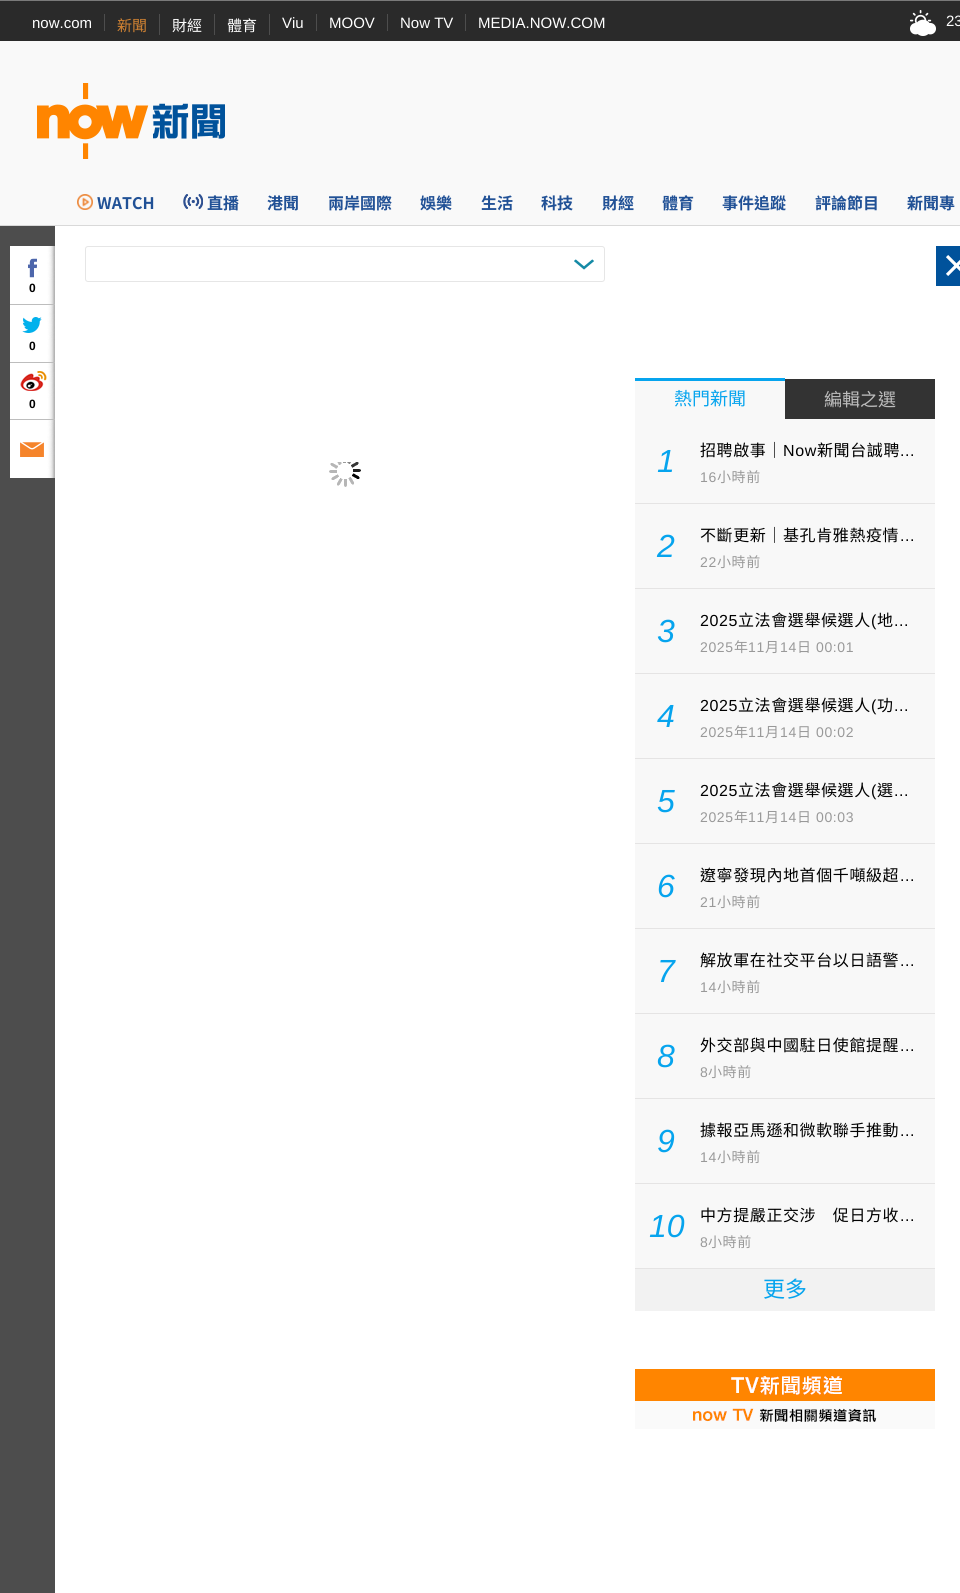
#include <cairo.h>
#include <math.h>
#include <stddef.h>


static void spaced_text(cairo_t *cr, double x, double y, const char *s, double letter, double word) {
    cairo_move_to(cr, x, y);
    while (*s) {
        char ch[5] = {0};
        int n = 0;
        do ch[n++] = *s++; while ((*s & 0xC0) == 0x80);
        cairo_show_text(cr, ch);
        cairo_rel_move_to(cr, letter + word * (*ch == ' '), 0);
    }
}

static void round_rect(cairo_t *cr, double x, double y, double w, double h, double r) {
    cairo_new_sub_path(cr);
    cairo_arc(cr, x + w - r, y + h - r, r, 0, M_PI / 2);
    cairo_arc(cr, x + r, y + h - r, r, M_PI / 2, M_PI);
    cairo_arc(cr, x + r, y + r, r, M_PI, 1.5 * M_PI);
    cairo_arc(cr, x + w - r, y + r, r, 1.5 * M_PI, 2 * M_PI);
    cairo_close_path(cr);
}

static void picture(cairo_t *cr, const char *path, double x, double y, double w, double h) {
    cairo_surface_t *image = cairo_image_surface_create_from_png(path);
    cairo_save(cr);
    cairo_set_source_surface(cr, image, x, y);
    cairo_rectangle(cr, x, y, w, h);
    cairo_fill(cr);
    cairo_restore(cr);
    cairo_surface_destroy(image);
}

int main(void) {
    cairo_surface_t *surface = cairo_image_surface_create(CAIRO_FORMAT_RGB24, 960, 1593);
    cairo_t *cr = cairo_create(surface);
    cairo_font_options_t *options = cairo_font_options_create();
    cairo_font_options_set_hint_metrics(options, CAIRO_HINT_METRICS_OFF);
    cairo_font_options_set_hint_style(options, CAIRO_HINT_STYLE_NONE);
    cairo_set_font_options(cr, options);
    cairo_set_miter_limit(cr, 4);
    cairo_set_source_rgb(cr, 0.302, 0.302, 0.302);
    cairo_paint(cr);
    cairo_set_source_rgb(cr, 0.165, 0.165, 0.165);
    cairo_rectangle(cr, 0, 1, 960, 40);
    cairo_fill(cr);
    cairo_set_source_rgb(cr, 0.478, 0.478, 0.478);
    cairo_rectangle(cr, 0, 0, 960, 1);
    cairo_fill(cr);
    cairo_set_source_rgb(cr, 0.302, 0.302, 0.302);
    cairo_rectangle(cr, 104, 14, 1, 17);
    cairo_fill(cr);
    cairo_select_font_face(cr, "Liberation Sans", CAIRO_FONT_SLANT_NORMAL, CAIRO_FONT_WEIGHT_NORMAL);
    cairo_set_font_size(cr, 15);
    cairo_set_source_rgb(cr, 1, 1, 1);
    cairo_move_to(cr, 32, 28);
    cairo_show_text(cr, "now.com");
    cairo_set_source_rgb(cr, 0.302, 0.302, 0.302);
    cairo_rectangle(cr, 159, 14, 1, 21);
    cairo_fill(cr);
    cairo_select_font_face(cr, "Noto Sans CJK HK", CAIRO_FONT_SLANT_NORMAL, CAIRO_FONT_WEIGHT_NORMAL);
    cairo_set_source_rgb(cr, 0.816, 0.51, 0.196);
    cairo_move_to(cr, 117, 31);
    cairo_show_text(cr, "新聞");
    cairo_set_source_rgb(cr, 0.302, 0.302, 0.302);
    cairo_rectangle(cr, 214, 14, 1, 21);
    cairo_fill(cr);
    cairo_set_source_rgb(cr, 1, 1, 1);
    cairo_move_to(cr, 172, 31);
    cairo_show_text(cr, "財經");
    cairo_set_source_rgb(cr, 0.302, 0.302, 0.302);
    cairo_rectangle(cr, 269, 14, 1, 21);
    cairo_fill(cr);
    cairo_set_source_rgb(cr, 1, 1, 1);
    cairo_move_to(cr, 227, 31);
    cairo_show_text(cr, "體育");
    cairo_set_source_rgb(cr, 0.302, 0.302, 0.302);
    cairo_rectangle(cr, 316, 14, 1, 17);
    cairo_fill(cr);
    cairo_select_font_face(cr, "Liberation Sans", CAIRO_FONT_SLANT_NORMAL, CAIRO_FONT_WEIGHT_NORMAL);
    cairo_set_source_rgb(cr, 1, 1, 1);
    cairo_move_to(cr, 282, 28);
    cairo_show_text(cr, "Viu");
    cairo_set_source_rgb(cr, 0.302, 0.302, 0.302);
    cairo_rectangle(cr, 387, 14, 1, 17);
    cairo_fill(cr);
    cairo_set_source_rgb(cr, 1, 1, 1);
    cairo_move_to(cr, 329, 28);
    cairo_show_text(cr, "MOOV");
    cairo_set_source_rgb(cr, 0.302, 0.302, 0.302);
    cairo_rectangle(cr, 465, 14, 1, 17);
    cairo_fill(cr);
    cairo_set_source_rgb(cr, 1, 1, 1);
    cairo_move_to(cr, 400, 28);
    cairo_show_text(cr, "Now TV");
    cairo_move_to(cr, 478, 28);
    cairo_show_text(cr, "MEDIA.NOW.COM");
    picture(cr, "img1.png", 910, 10, 26, 26);
    cairo_move_to(cr, 946, 26);
    cairo_show_text(cr, "23");
    cairo_set_source_rgb(cr, 0.973, 0.973, 0.973);
    cairo_rectangle(cr, 0, 41, 960, 184);
    cairo_fill(cr);
    picture(cr, "img2.png", 37, 83, 188, 76);
    cairo_set_source_rgb(cr, 0.851, 0.851, 0.851);
    cairo_rectangle(cr, 0, 225, 960, 1);
    cairo_fill(cr);
    picture(cr, "img3.png", 77, 194, 16, 16);
    cairo_select_font_face(cr, "Noto Sans HK", CAIRO_FONT_SLANT_NORMAL, CAIRO_FONT_WEIGHT_BOLD);
    cairo_set_font_size(cr, 16);
    cairo_set_source_rgb(cr, 0.129, 0.318, 0.588);
    cairo_move_to(cr, 97, 209);
    cairo_show_text(cr, "WATCH");
    picture(cr, "img4.png", 183, 194, 20, 15);
    cairo_move_to(cr, 207, 209);
    cairo_show_text(cr, "直播");
    cairo_move_to(cr, 267, 209);
    cairo_show_text(cr, "港聞");
    cairo_move_to(cr, 328, 209);
    cairo_show_text(cr, "兩岸國際");
    cairo_move_to(cr, 420, 209);
    cairo_show_text(cr, "娛樂");
    cairo_move_to(cr, 481, 209);
    cairo_show_text(cr, "生活");
    cairo_move_to(cr, 541, 209);
    cairo_show_text(cr, "科技");
    cairo_move_to(cr, 602, 209);
    cairo_show_text(cr, "財經");
    cairo_move_to(cr, 662, 209);
    cairo_show_text(cr, "體育");
    cairo_move_to(cr, 722, 209);
    cairo_show_text(cr, "事件追蹤");
    cairo_move_to(cr, 815, 209);
    cairo_show_text(cr, "評論節目");
    cairo_move_to(cr, 907, 209);
    cairo_show_text(cr, "新聞專");
    cairo_set_source_rgb(cr, 1, 1, 1);
    cairo_rectangle(cr, 55, 226, 905, 1367);
    cairo_fill(cr);
    picture(cr, "img5.png", 936, 246, 24, 40);
    picture(cr, "img6.png", 10, 246, 45, 232);
    cairo_select_font_face(cr, "Liberation Sans", CAIRO_FONT_SLANT_NORMAL, CAIRO_FONT_WEIGHT_BOLD);
    cairo_set_font_size(cr, 12);
    cairo_set_source_rgb(cr, 0, 0, 0);
    cairo_move_to(cr, 29, 292);
    cairo_show_text(cr, "0");
    cairo_move_to(cr, 29, 350);
    cairo_show_text(cr, "0");
    cairo_move_to(cr, 29, 408);
    cairo_show_text(cr, "0");
    round_rect(cr, 85.5, 246.5, 519, 35, 2.5);
    cairo_set_source_rgb(cr, 0.902, 0.902, 0.902);
    cairo_set_line_width(cr, 1);
    cairo_stroke(cr);
    picture(cr, "img7.png", 574, 259, 20, 11);
    picture(cr, "img8.png", 329, 462, 32, 25);
    cairo_set_source_rgb(cr, 0.969, 0.969, 0.969);
    cairo_rectangle(cr, 635, 381, 150, 38);
    cairo_fill(cr);
    cairo_set_source_rgb(cr, 0.027, 0.643, 0.933);
    cairo_rectangle(cr, 635, 378, 150, 3);
    cairo_fill(cr);
    cairo_select_font_face(cr, "Noto Sans CJK HK", CAIRO_FONT_SLANT_NORMAL, CAIRO_FONT_WEIGHT_NORMAL);
    cairo_set_font_size(cr, 18);
    cairo_move_to(cr, 674, 405);
    cairo_show_text(cr, "熱門新聞");
    cairo_set_source_rgb(cr, 0.2, 0.2, 0.2);
    cairo_rectangle(cr, 785, 379, 150, 40);
    cairo_fill(cr);
    cairo_set_source_rgb(cr, 0.737, 0.737, 0.737);
    cairo_move_to(cr, 824, 406);
    cairo_show_text(cr, "編輯之選");
    cairo_set_source_rgb(cr, 0.969, 0.969, 0.969);
    cairo_rectangle(cr, 635, 419, 300, 84);
    cairo_fill(cr);
    cairo_set_source_rgb(cr, 0.898, 0.894, 0.894);
    cairo_rectangle(cr, 635, 503, 300, 1);
    cairo_fill(cr);
    cairo_select_font_face(cr, "Liberation Sans", CAIRO_FONT_SLANT_ITALIC, CAIRO_FONT_WEIGHT_NORMAL);
    cairo_set_font_size(cr, 32);
    cairo_set_source_rgb(cr, 0.027, 0.643, 0.933);
    cairo_move_to(cr, 657, 472);
    cairo_show_text(cr, "1");
    cairo_select_font_face(cr, "Noto Sans CJK HK", CAIRO_FONT_SLANT_NORMAL, CAIRO_FONT_WEIGHT_NORMAL);
    cairo_set_font_size(cr, 16);
    cairo_set_source_rgb(cr, 0, 0, 0);
    spaced_text(cr, 700, 456, "招聘啟事｜", 0.6, 0);
    cairo_select_font_face(cr, "Liberation Sans", CAIRO_FONT_SLANT_NORMAL, CAIRO_FONT_WEIGHT_NORMAL);
    spaced_text(cr, 783, 456, "Now", 0.6, 0);
    cairo_select_font_face(cr, "Noto Sans CJK HK", CAIRO_FONT_SLANT_NORMAL, CAIRO_FONT_WEIGHT_NORMAL);
    spaced_text(cr, 817, 456, "新聞台誠聘", 0.6, 0);
    cairo_select_font_face(cr, "Liberation Sans", CAIRO_FONT_SLANT_NORMAL, CAIRO_FONT_WEIGHT_NORMAL);
    spaced_text(cr, 900, 456, "...", 0.6, 0);
    cairo_set_font_size(cr, 14);
    cairo_set_source_rgb(cr, 0.6, 0.6, 0.6);
    spaced_text(cr, 700, 482, "16", 0.6, 0);
    cairo_select_font_face(cr, "Noto Sans CJK HK", CAIRO_FONT_SLANT_NORMAL, CAIRO_FONT_WEIGHT_NORMAL);
    spaced_text(cr, 717, 482, "小時前", 0.6, 0);
    cairo_set_source_rgb(cr, 0.969, 0.969, 0.969);
    cairo_rectangle(cr, 635, 504, 300, 84);
    cairo_fill(cr);
    cairo_set_source_rgb(cr, 0.898, 0.894, 0.894);
    cairo_rectangle(cr, 635, 588, 300, 1);
    cairo_fill(cr);
    cairo_select_font_face(cr, "Liberation Sans", CAIRO_FONT_SLANT_ITALIC, CAIRO_FONT_WEIGHT_NORMAL);
    cairo_set_font_size(cr, 32);
    cairo_set_source_rgb(cr, 0.027, 0.643, 0.933);
    cairo_move_to(cr, 657, 557);
    cairo_show_text(cr, "2");
    cairo_select_font_face(cr, "Noto Sans CJK HK", CAIRO_FONT_SLANT_NORMAL, CAIRO_FONT_WEIGHT_NORMAL);
    cairo_set_font_size(cr, 16);
    cairo_set_source_rgb(cr, 0, 0, 0);
    spaced_text(cr, 700, 541, "不斷更新｜基孔肯雅熱疫情", 0.6, 0);
    cairo_select_font_face(cr, "Liberation Sans", CAIRO_FONT_SLANT_NORMAL, CAIRO_FONT_WEIGHT_NORMAL);
    spaced_text(cr, 900, 541, "...", 0.6, 0);
    cairo_set_font_size(cr, 14);
    cairo_set_source_rgb(cr, 0.6, 0.6, 0.6);
    spaced_text(cr, 700, 567, "22", 0.6, 0);
    cairo_select_font_face(cr, "Noto Sans CJK HK", CAIRO_FONT_SLANT_NORMAL, CAIRO_FONT_WEIGHT_NORMAL);
    spaced_text(cr, 717, 567, "小時前", 0.6, 0);
    cairo_set_source_rgb(cr, 0.969, 0.969, 0.969);
    cairo_rectangle(cr, 635, 589, 300, 84);
    cairo_fill(cr);
    cairo_set_source_rgb(cr, 0.898, 0.894, 0.894);
    cairo_rectangle(cr, 635, 673, 300, 1);
    cairo_fill(cr);
    cairo_select_font_face(cr, "Liberation Sans", CAIRO_FONT_SLANT_ITALIC, CAIRO_FONT_WEIGHT_NORMAL);
    cairo_set_font_size(cr, 32);
    cairo_set_source_rgb(cr, 0.027, 0.643, 0.933);
    cairo_move_to(cr, 657, 642);
    cairo_show_text(cr, "3");
    cairo_select_font_face(cr, "Liberation Sans", CAIRO_FONT_SLANT_NORMAL, CAIRO_FONT_WEIGHT_NORMAL);
    cairo_set_font_size(cr, 16);
    cairo_set_source_rgb(cr, 0, 0, 0);
    spaced_text(cr, 700, 626, "2025", 0.6, 0);
    cairo_select_font_face(cr, "Noto Sans CJK HK", CAIRO_FONT_SLANT_NORMAL, CAIRO_FONT_WEIGHT_NORMAL);
    spaced_text(cr, 738, 626, "立法會選舉候選人", 0.6, 0);
    cairo_select_font_face(cr, "Liberation Sans", CAIRO_FONT_SLANT_NORMAL, CAIRO_FONT_WEIGHT_NORMAL);
    spaced_text(cr, 871, 626, "(", 0.6, 0);
    cairo_select_font_face(cr, "Noto Sans CJK HK", CAIRO_FONT_SLANT_NORMAL, CAIRO_FONT_WEIGHT_NORMAL);
    spaced_text(cr, 877, 626, "地", 0.6, 0);
    cairo_select_font_face(cr, "Liberation Sans", CAIRO_FONT_SLANT_NORMAL, CAIRO_FONT_WEIGHT_NORMAL);
    spaced_text(cr, 894, 626, "...", 0.6, 0);
    cairo_set_font_size(cr, 14);
    cairo_set_source_rgb(cr, 0.6, 0.6, 0.6);
    spaced_text(cr, 700, 652, "2025", 0.6, 0);
    cairo_select_font_face(cr, "Noto Sans CJK HK", CAIRO_FONT_SLANT_NORMAL, CAIRO_FONT_WEIGHT_NORMAL);
    spaced_text(cr, 734, 652, "年", 0.6, 0);
    cairo_select_font_face(cr, "Liberation Sans", CAIRO_FONT_SLANT_NORMAL, CAIRO_FONT_WEIGHT_NORMAL);
    spaced_text(cr, 748, 652, "11", 0.6, 0);
    cairo_select_font_face(cr, "Noto Sans CJK HK", CAIRO_FONT_SLANT_NORMAL, CAIRO_FONT_WEIGHT_NORMAL);
    spaced_text(cr, 765, 652, "月", 0.6, 0);
    cairo_select_font_face(cr, "Liberation Sans", CAIRO_FONT_SLANT_NORMAL, CAIRO_FONT_WEIGHT_NORMAL);
    spaced_text(cr, 780, 652, "14", 0.6, 0);
    cairo_select_font_face(cr, "Noto Sans CJK HK", CAIRO_FONT_SLANT_NORMAL, CAIRO_FONT_WEIGHT_NORMAL);
    spaced_text(cr, 797, 652, "日", 0.6, 0);
    cairo_select_font_face(cr, "Liberation Sans", CAIRO_FONT_SLANT_NORMAL, CAIRO_FONT_WEIGHT_NORMAL);
    spaced_text(cr, 816, 652, "00:01", 0.6, 0);
    cairo_set_source_rgb(cr, 0.969, 0.969, 0.969);
    cairo_rectangle(cr, 635, 674, 300, 84);
    cairo_fill(cr);
    cairo_set_source_rgb(cr, 0.898, 0.894, 0.894);
    cairo_rectangle(cr, 635, 758, 300, 1);
    cairo_fill(cr);
    cairo_select_font_face(cr, "Liberation Sans", CAIRO_FONT_SLANT_ITALIC, CAIRO_FONT_WEIGHT_NORMAL);
    cairo_set_font_size(cr, 32);
    cairo_set_source_rgb(cr, 0.027, 0.643, 0.933);
    cairo_move_to(cr, 657, 727);
    cairo_show_text(cr, "4");
    cairo_select_font_face(cr, "Liberation Sans", CAIRO_FONT_SLANT_NORMAL, CAIRO_FONT_WEIGHT_NORMAL);
    cairo_set_font_size(cr, 16);
    cairo_set_source_rgb(cr, 0, 0, 0);
    spaced_text(cr, 700, 711, "2025", 0.6, 0);
    cairo_select_font_face(cr, "Noto Sans CJK HK", CAIRO_FONT_SLANT_NORMAL, CAIRO_FONT_WEIGHT_NORMAL);
    spaced_text(cr, 738, 711, "立法會選舉候選人", 0.6, 0);
    cairo_select_font_face(cr, "Liberation Sans", CAIRO_FONT_SLANT_NORMAL, CAIRO_FONT_WEIGHT_NORMAL);
    spaced_text(cr, 871, 711, "(", 0.6, 0);
    cairo_select_font_face(cr, "Noto Sans CJK HK", CAIRO_FONT_SLANT_NORMAL, CAIRO_FONT_WEIGHT_NORMAL);
    spaced_text(cr, 877, 711, "功", 0.6, 0);
    cairo_select_font_face(cr, "Liberation Sans", CAIRO_FONT_SLANT_NORMAL, CAIRO_FONT_WEIGHT_NORMAL);
    spaced_text(cr, 894, 711, "...", 0.6, 0);
    cairo_set_font_size(cr, 14);
    cairo_set_source_rgb(cr, 0.6, 0.6, 0.6);
    spaced_text(cr, 700, 737, "2025", 0.6, 0);
    cairo_select_font_face(cr, "Noto Sans CJK HK", CAIRO_FONT_SLANT_NORMAL, CAIRO_FONT_WEIGHT_NORMAL);
    spaced_text(cr, 734, 737, "年", 0.6, 0);
    cairo_select_font_face(cr, "Liberation Sans", CAIRO_FONT_SLANT_NORMAL, CAIRO_FONT_WEIGHT_NORMAL);
    spaced_text(cr, 748, 737, "11", 0.6, 0);
    cairo_select_font_face(cr, "Noto Sans CJK HK", CAIRO_FONT_SLANT_NORMAL, CAIRO_FONT_WEIGHT_NORMAL);
    spaced_text(cr, 765, 737, "月", 0.6, 0);
    cairo_select_font_face(cr, "Liberation Sans", CAIRO_FONT_SLANT_NORMAL, CAIRO_FONT_WEIGHT_NORMAL);
    spaced_text(cr, 780, 737, "14", 0.6, 0);
    cairo_select_font_face(cr, "Noto Sans CJK HK", CAIRO_FONT_SLANT_NORMAL, CAIRO_FONT_WEIGHT_NORMAL);
    spaced_text(cr, 797, 737, "日", 0.6, 0);
    cairo_select_font_face(cr, "Liberation Sans", CAIRO_FONT_SLANT_NORMAL, CAIRO_FONT_WEIGHT_NORMAL);
    spaced_text(cr, 816, 737, "00:02", 0.6, 0);
    cairo_set_source_rgb(cr, 0.969, 0.969, 0.969);
    cairo_rectangle(cr, 635, 759, 300, 84);
    cairo_fill(cr);
    cairo_set_source_rgb(cr, 0.898, 0.894, 0.894);
    cairo_rectangle(cr, 635, 843, 300, 1);
    cairo_fill(cr);
    cairo_select_font_face(cr, "Liberation Sans", CAIRO_FONT_SLANT_ITALIC, CAIRO_FONT_WEIGHT_NORMAL);
    cairo_set_font_size(cr, 32);
    cairo_set_source_rgb(cr, 0.027, 0.643, 0.933);
    cairo_move_to(cr, 657, 812);
    cairo_show_text(cr, "5");
    cairo_select_font_face(cr, "Liberation Sans", CAIRO_FONT_SLANT_NORMAL, CAIRO_FONT_WEIGHT_NORMAL);
    cairo_set_font_size(cr, 16);
    cairo_set_source_rgb(cr, 0, 0, 0);
    spaced_text(cr, 700, 796, "2025", 0.6, 0);
    cairo_select_font_face(cr, "Noto Sans CJK HK", CAIRO_FONT_SLANT_NORMAL, CAIRO_FONT_WEIGHT_NORMAL);
    spaced_text(cr, 738, 796, "立法會選舉候選人", 0.6, 0);
    cairo_select_font_face(cr, "Liberation Sans", CAIRO_FONT_SLANT_NORMAL, CAIRO_FONT_WEIGHT_NORMAL);
    spaced_text(cr, 871, 796, "(", 0.6, 0);
    cairo_select_font_face(cr, "Noto Sans CJK HK", CAIRO_FONT_SLANT_NORMAL, CAIRO_FONT_WEIGHT_NORMAL);
    spaced_text(cr, 877, 796, "選", 0.6, 0);
    cairo_select_font_face(cr, "Liberation Sans", CAIRO_FONT_SLANT_NORMAL, CAIRO_FONT_WEIGHT_NORMAL);
    spaced_text(cr, 894, 796, "...", 0.6, 0);
    cairo_set_font_size(cr, 14);
    cairo_set_source_rgb(cr, 0.6, 0.6, 0.6);
    spaced_text(cr, 700, 822, "2025", 0.6, 0);
    cairo_select_font_face(cr, "Noto Sans CJK HK", CAIRO_FONT_SLANT_NORMAL, CAIRO_FONT_WEIGHT_NORMAL);
    spaced_text(cr, 734, 822, "年", 0.6, 0);
    cairo_select_font_face(cr, "Liberation Sans", CAIRO_FONT_SLANT_NORMAL, CAIRO_FONT_WEIGHT_NORMAL);
    spaced_text(cr, 748, 822, "11", 0.6, 0);
    cairo_select_font_face(cr, "Noto Sans CJK HK", CAIRO_FONT_SLANT_NORMAL, CAIRO_FONT_WEIGHT_NORMAL);
    spaced_text(cr, 765, 822, "月", 0.6, 0);
    cairo_select_font_face(cr, "Liberation Sans", CAIRO_FONT_SLANT_NORMAL, CAIRO_FONT_WEIGHT_NORMAL);
    spaced_text(cr, 780, 822, "14", 0.6, 0);
    cairo_select_font_face(cr, "Noto Sans CJK HK", CAIRO_FONT_SLANT_NORMAL, CAIRO_FONT_WEIGHT_NORMAL);
    spaced_text(cr, 797, 822, "日", 0.6, 0);
    cairo_select_font_face(cr, "Liberation Sans", CAIRO_FONT_SLANT_NORMAL, CAIRO_FONT_WEIGHT_NORMAL);
    spaced_text(cr, 816, 822, "00:03", 0.6, 0);
    cairo_set_source_rgb(cr, 0.969, 0.969, 0.969);
    cairo_rectangle(cr, 635, 844, 300, 84);
    cairo_fill(cr);
    cairo_set_source_rgb(cr, 0.898, 0.894, 0.894);
    cairo_rectangle(cr, 635, 928, 300, 1);
    cairo_fill(cr);
    cairo_select_font_face(cr, "Liberation Sans", CAIRO_FONT_SLANT_ITALIC, CAIRO_FONT_WEIGHT_NORMAL);
    cairo_set_font_size(cr, 32);
    cairo_set_source_rgb(cr, 0.027, 0.643, 0.933);
    cairo_move_to(cr, 657, 897);
    cairo_show_text(cr, "6");
    cairo_select_font_face(cr, "Noto Sans CJK HK", CAIRO_FONT_SLANT_NORMAL, CAIRO_FONT_WEIGHT_NORMAL);
    cairo_set_font_size(cr, 16);
    cairo_set_source_rgb(cr, 0, 0, 0);
    spaced_text(cr, 700, 881, "遼寧發現內地首個千噸級超", 0.6, 0);
    cairo_select_font_face(cr, "Liberation Sans", CAIRO_FONT_SLANT_NORMAL, CAIRO_FONT_WEIGHT_NORMAL);
    spaced_text(cr, 900, 881, "...", 0.6, 0);
    cairo_set_font_size(cr, 14);
    cairo_set_source_rgb(cr, 0.6, 0.6, 0.6);
    spaced_text(cr, 700, 907, "21", 0.6, 0);
    cairo_select_font_face(cr, "Noto Sans CJK HK", CAIRO_FONT_SLANT_NORMAL, CAIRO_FONT_WEIGHT_NORMAL);
    spaced_text(cr, 717, 907, "小時前", 0.6, 0);
    cairo_set_source_rgb(cr, 0.969, 0.969, 0.969);
    cairo_rectangle(cr, 635, 929, 300, 84);
    cairo_fill(cr);
    cairo_set_source_rgb(cr, 0.898, 0.894, 0.894);
    cairo_rectangle(cr, 635, 1013, 300, 1);
    cairo_fill(cr);
    cairo_select_font_face(cr, "Liberation Sans", CAIRO_FONT_SLANT_ITALIC, CAIRO_FONT_WEIGHT_NORMAL);
    cairo_set_font_size(cr, 32);
    cairo_set_source_rgb(cr, 0.027, 0.643, 0.933);
    cairo_move_to(cr, 657, 982);
    cairo_show_text(cr, "7");
    cairo_select_font_face(cr, "Noto Sans CJK HK", CAIRO_FONT_SLANT_NORMAL, CAIRO_FONT_WEIGHT_NORMAL);
    cairo_set_font_size(cr, 16);
    cairo_set_source_rgb(cr, 0, 0, 0);
    spaced_text(cr, 700, 966, "解放軍在社交平台以日語警", 0.6, 0);
    cairo_select_font_face(cr, "Liberation Sans", CAIRO_FONT_SLANT_NORMAL, CAIRO_FONT_WEIGHT_NORMAL);
    spaced_text(cr, 900, 966, "...", 0.6, 0);
    cairo_set_font_size(cr, 14);
    cairo_set_source_rgb(cr, 0.6, 0.6, 0.6);
    spaced_text(cr, 700, 992, "14", 0.6, 0);
    cairo_select_font_face(cr, "Noto Sans CJK HK", CAIRO_FONT_SLANT_NORMAL, CAIRO_FONT_WEIGHT_NORMAL);
    spaced_text(cr, 717, 992, "小時前", 0.6, 0);
    cairo_set_source_rgb(cr, 0.969, 0.969, 0.969);
    cairo_rectangle(cr, 635, 1014, 300, 84);
    cairo_fill(cr);
    cairo_set_source_rgb(cr, 0.898, 0.894, 0.894);
    cairo_rectangle(cr, 635, 1098, 300, 1);
    cairo_fill(cr);
    cairo_select_font_face(cr, "Liberation Sans", CAIRO_FONT_SLANT_ITALIC, CAIRO_FONT_WEIGHT_NORMAL);
    cairo_set_font_size(cr, 32);
    cairo_set_source_rgb(cr, 0.027, 0.643, 0.933);
    cairo_move_to(cr, 657, 1067);
    cairo_show_text(cr, "8");
    cairo_select_font_face(cr, "Noto Sans CJK HK", CAIRO_FONT_SLANT_NORMAL, CAIRO_FONT_WEIGHT_NORMAL);
    cairo_set_font_size(cr, 16);
    cairo_set_source_rgb(cr, 0, 0, 0);
    spaced_text(cr, 700, 1051, "外交部與中國駐日使館提醒", 0.6, 0);
    cairo_select_font_face(cr, "Liberation Sans", CAIRO_FONT_SLANT_NORMAL, CAIRO_FONT_WEIGHT_NORMAL);
    spaced_text(cr, 900, 1051, "...", 0.6, 0);
    cairo_set_font_size(cr, 14);
    cairo_set_source_rgb(cr, 0.6, 0.6, 0.6);
    spaced_text(cr, 700, 1077, "8", 0.6, 0);
    cairo_select_font_face(cr, "Noto Sans CJK HK", CAIRO_FONT_SLANT_NORMAL, CAIRO_FONT_WEIGHT_NORMAL);
    spaced_text(cr, 708, 1077, "小時前", 0.6, 0);
    cairo_set_source_rgb(cr, 0.969, 0.969, 0.969);
    cairo_rectangle(cr, 635, 1099, 300, 84);
    cairo_fill(cr);
    cairo_set_source_rgb(cr, 0.898, 0.894, 0.894);
    cairo_rectangle(cr, 635, 1183, 300, 1);
    cairo_fill(cr);
    cairo_select_font_face(cr, "Liberation Sans", CAIRO_FONT_SLANT_ITALIC, CAIRO_FONT_WEIGHT_NORMAL);
    cairo_set_font_size(cr, 32);
    cairo_set_source_rgb(cr, 0.027, 0.643, 0.933);
    cairo_move_to(cr, 657, 1152);
    cairo_show_text(cr, "9");
    cairo_select_font_face(cr, "Noto Sans CJK HK", CAIRO_FONT_SLANT_NORMAL, CAIRO_FONT_WEIGHT_NORMAL);
    cairo_set_font_size(cr, 16);
    cairo_set_source_rgb(cr, 0, 0, 0);
    spaced_text(cr, 700, 1136, "據報亞馬遜和微軟聯手推動", 0.6, 0);
    cairo_select_font_face(cr, "Liberation Sans", CAIRO_FONT_SLANT_NORMAL, CAIRO_FONT_WEIGHT_NORMAL);
    spaced_text(cr, 900, 1136, "...", 0.6, 0);
    cairo_set_font_size(cr, 14);
    cairo_set_source_rgb(cr, 0.6, 0.6, 0.6);
    spaced_text(cr, 700, 1162, "14", 0.6, 0);
    cairo_select_font_face(cr, "Noto Sans CJK HK", CAIRO_FONT_SLANT_NORMAL, CAIRO_FONT_WEIGHT_NORMAL);
    spaced_text(cr, 717, 1162, "小時前", 0.6, 0);
    cairo_set_source_rgb(cr, 0.969, 0.969, 0.969);
    cairo_rectangle(cr, 635, 1184, 300, 84);
    cairo_fill(cr);
    cairo_set_source_rgb(cr, 0.898, 0.894, 0.894);
    cairo_rectangle(cr, 635, 1268, 300, 1);
    cairo_fill(cr);
    cairo_select_font_face(cr, "Liberation Sans", CAIRO_FONT_SLANT_ITALIC, CAIRO_FONT_WEIGHT_NORMAL);
    cairo_set_font_size(cr, 32);
    cairo_set_source_rgb(cr, 0.027, 0.643, 0.933);
    cairo_move_to(cr, 649, 1237);
    cairo_show_text(cr, "10");
    cairo_select_font_face(cr, "Noto Sans CJK HK", CAIRO_FONT_SLANT_NORMAL, CAIRO_FONT_WEIGHT_NORMAL);
    cairo_set_font_size(cr, 16);
    cairo_set_source_rgb(cr, 0, 0, 0);
    spaced_text(cr, 700, 1221, "中方提嚴正交涉　促日方收", 0.6, 0);
    cairo_select_font_face(cr, "Liberation Sans", CAIRO_FONT_SLANT_NORMAL, CAIRO_FONT_WEIGHT_NORMAL);
    spaced_text(cr, 900, 1221, "...", 0.6, 0);
    cairo_set_font_size(cr, 14);
    cairo_set_source_rgb(cr, 0.6, 0.6, 0.6);
    spaced_text(cr, 700, 1247, "8", 0.6, 0);
    cairo_select_font_face(cr, "Noto Sans CJK HK", CAIRO_FONT_SLANT_NORMAL, CAIRO_FONT_WEIGHT_NORMAL);
    spaced_text(cr, 708, 1247, "小時前", 0.6, 0);
    cairo_set_source_rgb(cr, 0.949, 0.949, 0.949);
    cairo_rectangle(cr, 635, 1269, 300, 42);
    cairo_fill(cr);
    cairo_set_font_size(cr, 22);
    cairo_set_source_rgb(cr, 0.027, 0.643, 0.933);
    cairo_move_to(cr, 763, 1297);
    cairo_show_text(cr, "更多");
    picture(cr, "img9.png", 635, 1369, 300, 60);
    cairo_surface_write_to_png(surface, "page.png");
    cairo_font_options_destroy(options);
    cairo_destroy(cr);
    cairo_surface_destroy(surface);
    return 0;
}
